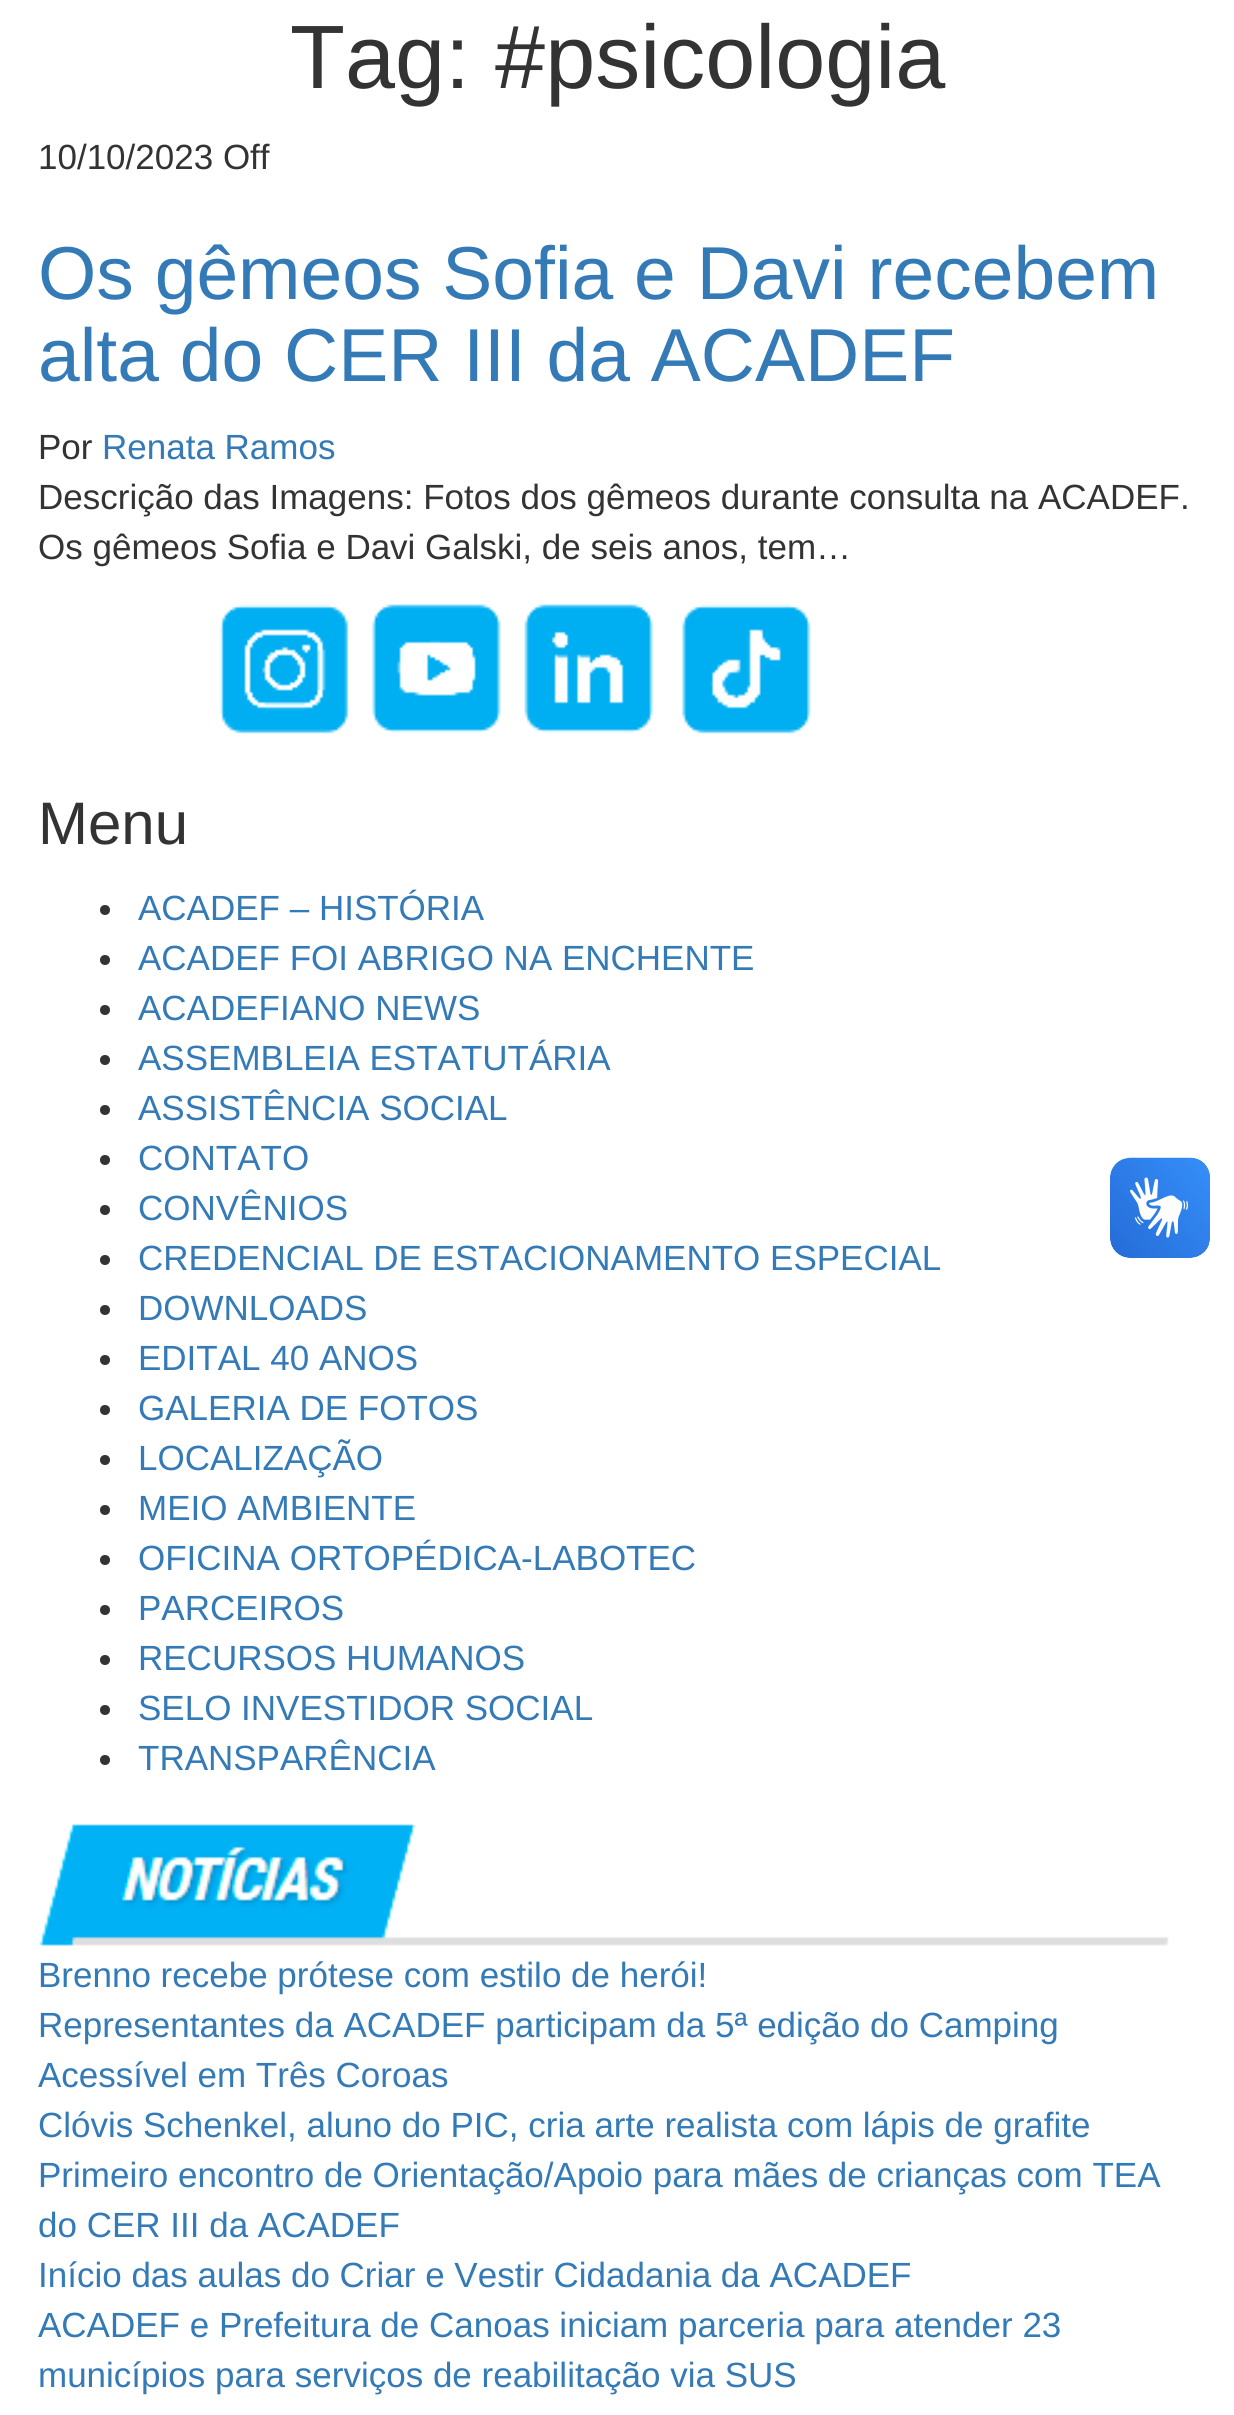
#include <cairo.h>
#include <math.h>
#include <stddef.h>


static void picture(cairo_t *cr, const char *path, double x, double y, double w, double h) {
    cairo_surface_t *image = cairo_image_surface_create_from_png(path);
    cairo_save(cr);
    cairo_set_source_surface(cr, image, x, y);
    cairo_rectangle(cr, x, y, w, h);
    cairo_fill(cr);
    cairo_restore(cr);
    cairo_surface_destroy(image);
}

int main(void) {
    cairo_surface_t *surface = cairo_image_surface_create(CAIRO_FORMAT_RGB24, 1234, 2415);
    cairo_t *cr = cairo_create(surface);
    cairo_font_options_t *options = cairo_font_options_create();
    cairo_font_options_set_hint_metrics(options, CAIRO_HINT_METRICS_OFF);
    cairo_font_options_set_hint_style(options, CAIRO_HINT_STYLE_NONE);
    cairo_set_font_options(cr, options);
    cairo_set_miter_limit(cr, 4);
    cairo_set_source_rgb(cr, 1, 1, 1);
    cairo_paint(cr);
    cairo_select_font_face(cr, "Liberation Sans", CAIRO_FONT_SLANT_NORMAL, CAIRO_FONT_WEIGHT_NORMAL);
    cairo_set_font_size(cr, 90);
    cairo_set_source_rgb(cr, 0.2, 0.2, 0.2);
    cairo_move_to(cr, 290, 88);
    cairo_show_text(cr, "Tag: #psicologia");
    cairo_set_font_size(cr, 35);
    cairo_move_to(cr, 38, 169);
    cairo_show_text(cr, "10/10/2023 Off");
    cairo_set_font_size(cr, 75);
    cairo_set_source_rgb(cr, 0.2, 0.478, 0.718);
    cairo_move_to(cr, 38, 299);
    cairo_show_text(cr, "Os gêmeos Sofia e Davi recebem");
    cairo_move_to(cr, 38, 381);
    cairo_show_text(cr, "alta do CER III da ACADEF");
    cairo_set_font_size(cr, 35);
    cairo_set_source_rgb(cr, 0.2, 0.2, 0.2);
    cairo_move_to(cr, 38, 459);
    cairo_show_text(cr, "Por");
    cairo_set_source_rgb(cr, 0.2, 0.478, 0.718);
    cairo_move_to(cr, 102, 459);
    cairo_show_text(cr, "Renata Ramos");
    cairo_set_source_rgb(cr, 0.2, 0.2, 0.2);
    cairo_move_to(cr, 38, 509);
    cairo_show_text(cr, "Descrição das Imagens: Fotos dos gêmeos durante consulta na ACADEF.");
    cairo_move_to(cr, 38, 559);
    cairo_show_text(cr, "Os gêmeos Sofia e Davi Galski, de seis anos, tem…");
    picture(cr, "img1.png", 219, 604, 130, 130);
    picture(cr, "img2.png", 371, 604, 130, 129);
    picture(cr, "img3.png", 524, 604, 130, 129);
    picture(cr, "img4.png", 681, 604, 130, 130);
    cairo_set_font_size(cr, 60);
    cairo_move_to(cr, 38, 844);
    cairo_show_text(cr, "Menu");
    cairo_new_path(cr);
    cairo_arc(cr, 105, 910, 5, 0, 2 * M_PI);
    cairo_fill(cr);
    cairo_set_font_size(cr, 35);
    cairo_set_source_rgb(cr, 0.2, 0.478, 0.718);
    cairo_move_to(cr, 138, 920);
    cairo_show_text(cr, "ACADEF – HISTÓRIA");
    cairo_set_source_rgb(cr, 0.2, 0.2, 0.2);
    cairo_new_path(cr);
    cairo_arc(cr, 105, 960, 5, 0, 2 * M_PI);
    cairo_fill(cr);
    cairo_set_source_rgb(cr, 0.2, 0.478, 0.718);
    cairo_move_to(cr, 138, 970);
    cairo_show_text(cr, "ACADEF FOI ABRIGO NA ENCHENTE");
    cairo_set_source_rgb(cr, 0.2, 0.2, 0.2);
    cairo_new_path(cr);
    cairo_arc(cr, 105, 1010, 5, 0, 2 * M_PI);
    cairo_fill(cr);
    cairo_set_source_rgb(cr, 0.2, 0.478, 0.718);
    cairo_move_to(cr, 138, 1020);
    cairo_show_text(cr, "ACADEFIANO NEWS");
    cairo_set_source_rgb(cr, 0.2, 0.2, 0.2);
    cairo_new_path(cr);
    cairo_arc(cr, 105, 1060, 5, 0, 2 * M_PI);
    cairo_fill(cr);
    cairo_set_source_rgb(cr, 0.2, 0.478, 0.718);
    cairo_move_to(cr, 138, 1070);
    cairo_show_text(cr, "ASSEMBLEIA ESTATUTÁRIA");
    cairo_set_source_rgb(cr, 0.2, 0.2, 0.2);
    cairo_new_path(cr);
    cairo_arc(cr, 105, 1110, 5, 0, 2 * M_PI);
    cairo_fill(cr);
    cairo_set_source_rgb(cr, 0.2, 0.478, 0.718);
    cairo_move_to(cr, 138, 1120);
    cairo_show_text(cr, "ASSISTÊNCIA SOCIAL");
    cairo_set_source_rgb(cr, 0.2, 0.2, 0.2);
    cairo_new_path(cr);
    cairo_arc(cr, 105, 1160, 5, 0, 2 * M_PI);
    cairo_fill(cr);
    cairo_set_source_rgb(cr, 0.2, 0.478, 0.718);
    cairo_move_to(cr, 138, 1170);
    cairo_show_text(cr, "CONTATO");
    cairo_set_source_rgb(cr, 0.2, 0.2, 0.2);
    cairo_new_path(cr);
    cairo_arc(cr, 105, 1210, 5, 0, 2 * M_PI);
    cairo_fill(cr);
    cairo_set_source_rgb(cr, 0.2, 0.478, 0.718);
    cairo_move_to(cr, 138, 1220);
    cairo_show_text(cr, "CONVÊNIOS");
    cairo_set_source_rgb(cr, 0.2, 0.2, 0.2);
    cairo_new_path(cr);
    cairo_arc(cr, 105, 1260, 5, 0, 2 * M_PI);
    cairo_fill(cr);
    cairo_set_source_rgb(cr, 0.2, 0.478, 0.718);
    cairo_move_to(cr, 138, 1270);
    cairo_show_text(cr, "CREDENCIAL DE ESTACIONAMENTO ESPECIAL");
    cairo_set_source_rgb(cr, 0.2, 0.2, 0.2);
    cairo_new_path(cr);
    cairo_arc(cr, 105, 1310, 5, 0, 2 * M_PI);
    cairo_fill(cr);
    cairo_set_source_rgb(cr, 0.2, 0.478, 0.718);
    cairo_move_to(cr, 138, 1320);
    cairo_show_text(cr, "DOWNLOADS");
    cairo_set_source_rgb(cr, 0.2, 0.2, 0.2);
    cairo_new_path(cr);
    cairo_arc(cr, 105, 1360, 5, 0, 2 * M_PI);
    cairo_fill(cr);
    cairo_set_source_rgb(cr, 0.2, 0.478, 0.718);
    cairo_move_to(cr, 138, 1370);
    cairo_show_text(cr, "EDITAL 40 ANOS");
    cairo_set_source_rgb(cr, 0.2, 0.2, 0.2);
    cairo_new_path(cr);
    cairo_arc(cr, 105, 1410, 5, 0, 2 * M_PI);
    cairo_fill(cr);
    cairo_set_source_rgb(cr, 0.2, 0.478, 0.718);
    cairo_move_to(cr, 138, 1420);
    cairo_show_text(cr, "GALERIA DE FOTOS");
    cairo_set_source_rgb(cr, 0.2, 0.2, 0.2);
    cairo_new_path(cr);
    cairo_arc(cr, 105, 1460, 5, 0, 2 * M_PI);
    cairo_fill(cr);
    cairo_set_source_rgb(cr, 0.2, 0.478, 0.718);
    cairo_move_to(cr, 138, 1470);
    cairo_show_text(cr, "LOCALIZAÇÃO");
    cairo_set_source_rgb(cr, 0.2, 0.2, 0.2);
    cairo_new_path(cr);
    cairo_arc(cr, 105, 1510, 5, 0, 2 * M_PI);
    cairo_fill(cr);
    cairo_set_source_rgb(cr, 0.2, 0.478, 0.718);
    cairo_move_to(cr, 138, 1520);
    cairo_show_text(cr, "MEIO AMBIENTE");
    cairo_set_source_rgb(cr, 0.2, 0.2, 0.2);
    cairo_new_path(cr);
    cairo_arc(cr, 105, 1560, 5, 0, 2 * M_PI);
    cairo_fill(cr);
    cairo_set_source_rgb(cr, 0.2, 0.478, 0.718);
    cairo_move_to(cr, 138, 1570);
    cairo_show_text(cr, "OFICINA ORTOPÉDICA-LABOTEC");
    cairo_set_source_rgb(cr, 0.2, 0.2, 0.2);
    cairo_new_path(cr);
    cairo_arc(cr, 105, 1610, 5, 0, 2 * M_PI);
    cairo_fill(cr);
    cairo_set_source_rgb(cr, 0.2, 0.478, 0.718);
    cairo_move_to(cr, 138, 1620);
    cairo_show_text(cr, "PARCEIROS");
    cairo_set_source_rgb(cr, 0.2, 0.2, 0.2);
    cairo_new_path(cr);
    cairo_arc(cr, 105, 1660, 5, 0, 2 * M_PI);
    cairo_fill(cr);
    cairo_set_source_rgb(cr, 0.2, 0.478, 0.718);
    cairo_move_to(cr, 138, 1670);
    cairo_show_text(cr, "RECURSOS HUMANOS");
    cairo_set_source_rgb(cr, 0.2, 0.2, 0.2);
    cairo_new_path(cr);
    cairo_arc(cr, 105, 1710, 5, 0, 2 * M_PI);
    cairo_fill(cr);
    cairo_set_source_rgb(cr, 0.2, 0.478, 0.718);
    cairo_move_to(cr, 138, 1720);
    cairo_show_text(cr, "SELO INVESTIDOR SOCIAL");
    cairo_set_source_rgb(cr, 0.2, 0.2, 0.2);
    cairo_new_path(cr);
    cairo_arc(cr, 105, 1760, 5, 0, 2 * M_PI);
    cairo_fill(cr);
    cairo_set_source_rgb(cr, 0.2, 0.478, 0.718);
    cairo_move_to(cr, 138, 1770);
    cairo_show_text(cr, "TRANSPARÊNCIA");
    picture(cr, "img5.png", 39, 1824, 1130, 122);
    cairo_move_to(cr, 38, 1987);
    cairo_show_text(cr, "Brenno recebe prótese com estilo de herói!");
    cairo_move_to(cr, 38, 2037);
    cairo_show_text(cr, "Representantes da ACADEF participam da 5ª edição do Camping");
    cairo_move_to(cr, 38, 2087);
    cairo_show_text(cr, "Acessível em Três Coroas");
    cairo_move_to(cr, 38, 2137);
    cairo_show_text(cr, "Clóvis Schenkel, aluno do PIC, cria arte realista com lápis de grafite");
    cairo_move_to(cr, 38, 2187);
    cairo_show_text(cr, "Primeiro encontro de Orientação/Apoio para mães de crianças com TEA");
    cairo_move_to(cr, 38, 2237);
    cairo_show_text(cr, "do CER III da ACADEF");
    cairo_move_to(cr, 38, 2287);
    cairo_show_text(cr, "Início das aulas do Criar e Vestir Cidadania da ACADEF");
    cairo_move_to(cr, 38, 2337);
    cairo_show_text(cr, "ACADEF e Prefeitura de Canoas iniciam parceria para atender 23");
    cairo_move_to(cr, 38, 2387);
    cairo_show_text(cr, "municípios para serviços de reabilitação via SUS");
    picture(cr, "img6.png", 1110, 1157, 100, 101);
    picture(cr, "img7.png", 1110, 1158, 100, 100);
    cairo_surface_write_to_png(surface, "page.png");
    cairo_font_options_destroy(options);
    cairo_destroy(cr);
    cairo_surface_destroy(surface);
    return 0;
}
